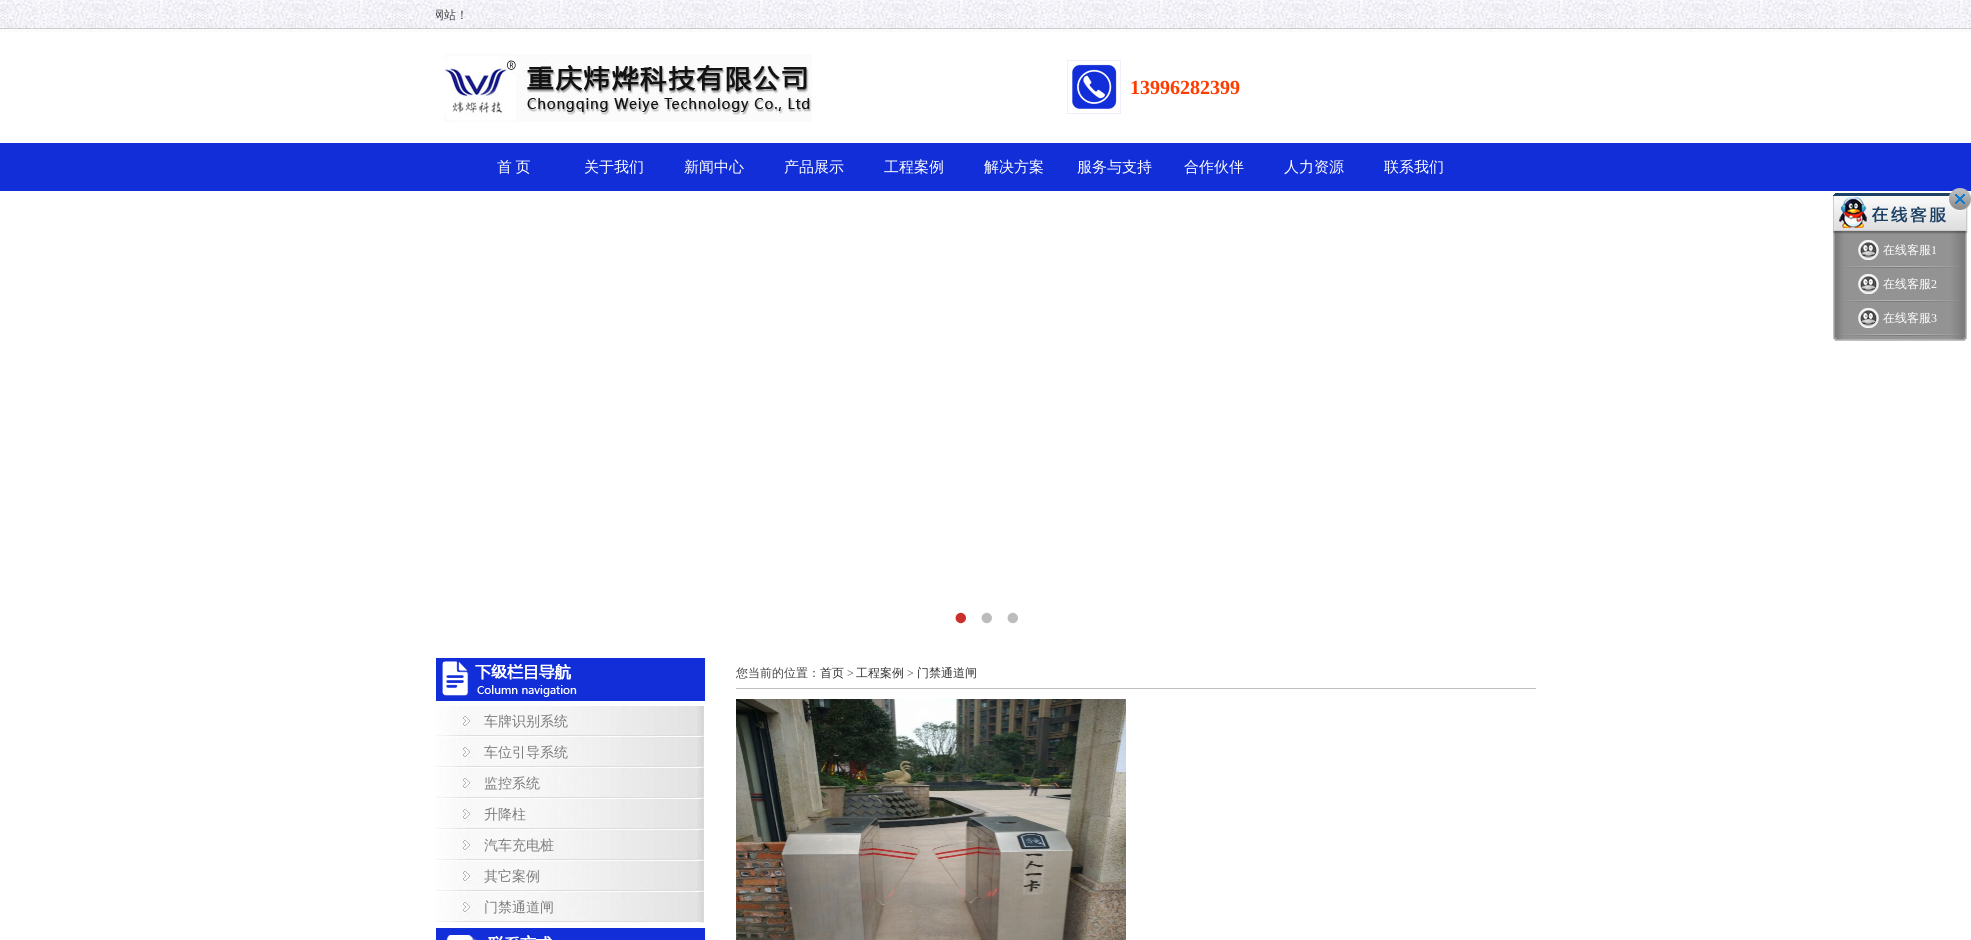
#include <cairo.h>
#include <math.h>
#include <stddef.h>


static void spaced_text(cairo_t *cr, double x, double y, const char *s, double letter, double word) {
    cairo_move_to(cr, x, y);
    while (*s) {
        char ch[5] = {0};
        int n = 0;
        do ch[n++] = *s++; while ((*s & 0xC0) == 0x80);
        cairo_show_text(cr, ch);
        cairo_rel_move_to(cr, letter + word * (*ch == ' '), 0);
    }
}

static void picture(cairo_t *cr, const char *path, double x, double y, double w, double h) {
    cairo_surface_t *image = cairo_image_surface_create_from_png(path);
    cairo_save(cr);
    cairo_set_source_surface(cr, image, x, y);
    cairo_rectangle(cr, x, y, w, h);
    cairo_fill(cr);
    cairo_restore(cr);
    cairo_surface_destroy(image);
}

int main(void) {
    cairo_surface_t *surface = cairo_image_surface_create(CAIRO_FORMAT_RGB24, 1971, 940);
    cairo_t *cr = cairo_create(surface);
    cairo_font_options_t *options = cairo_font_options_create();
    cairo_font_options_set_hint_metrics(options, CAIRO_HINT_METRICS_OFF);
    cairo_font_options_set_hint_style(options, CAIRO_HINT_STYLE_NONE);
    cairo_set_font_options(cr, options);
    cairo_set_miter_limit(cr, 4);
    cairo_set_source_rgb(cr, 1, 1, 1);
    cairo_paint(cr);
    picture(cr, "img1.png", 0, 0, 1971, 32);
    cairo_save(cr);
    cairo_rectangle(cr, 436, 4, 1100, 22);
    cairo_clip(cr);
    cairo_select_font_face(cr, "WenQuanYi Zen Hei Medium", CAIRO_FONT_SLANT_NORMAL, CAIRO_FONT_WEIGHT_NORMAL);
    cairo_set_font_size(cr, 12);
    cairo_set_source_rgb(cr, 0.271, 0.271, 0.271);
    cairo_move_to(cr, 432, 19);
    cairo_show_text(cr, "网站！");
    cairo_restore(cr);
    picture(cr, "img2.png", 444, 54, 368, 68);
    cairo_set_source_rgb(cr, 0.071, 0.18, 0.847);
    cairo_rectangle(cr, 1067, 60, 54, 54);
    cairo_fill(cr);
    picture(cr, "img3.png", 1067, 60, 54, 54);
    cairo_select_font_face(cr, "Liberation Serif", CAIRO_FONT_SLANT_NORMAL, CAIRO_FONT_WEIGHT_BOLD);
    cairo_set_font_size(cr, 20);
    cairo_set_source_rgb(cr, 1, 0.235, 0);
    cairo_move_to(cr, 1130, 94);
    cairo_show_text(cr, "13996282399");
    cairo_set_source_rgb(cr, 0.071, 0.18, 0.847);
    cairo_rectangle(cr, 0, 143, 1971, 48);
    cairo_fill(cr);
    cairo_select_font_face(cr, "WenQuanYi Zen Hei Medium", CAIRO_FONT_SLANT_NORMAL, CAIRO_FONT_WEIGHT_NORMAL);
    cairo_set_font_size(cr, 15);
    cairo_set_source_rgb(cr, 1, 1, 1);
    spaced_text(cr, 497, 172, "首 页", 0, -1);
    cairo_move_to(cr, 584, 172);
    cairo_show_text(cr, "关于我们");
    cairo_move_to(cr, 684, 172);
    cairo_show_text(cr, "新闻中心");
    cairo_move_to(cr, 784, 172);
    cairo_show_text(cr, "产品展示");
    cairo_move_to(cr, 884, 172);
    cairo_show_text(cr, "工程案例");
    cairo_move_to(cr, 984, 172);
    cairo_show_text(cr, "解决方案");
    cairo_move_to(cr, 1077, 172);
    cairo_show_text(cr, "服务与支持");
    cairo_move_to(cr, 1184, 172);
    cairo_show_text(cr, "合作伙伴");
    cairo_move_to(cr, 1284, 172);
    cairo_show_text(cr, "人力资源");
    cairo_move_to(cr, 1384, 172);
    cairo_show_text(cr, "联系我们");
    picture(cr, "img4.png", 1833, 188, 138, 46);
    picture(cr, "img5.png", 1833, 336, 134, 5);
    picture(cr, "img6.png", 1833, 234, 134, 102);
    picture(cr, "img7.png", 1843, 266, 118, 2);
    picture(cr, "img8.png", 1858, 240, 21, 20);
    cairo_set_font_size(cr, 12);
    cairo_move_to(cr, 1883, 254);
    cairo_show_text(cr, "在线客服");
    cairo_select_font_face(cr, "Liberation Serif", CAIRO_FONT_SLANT_NORMAL, CAIRO_FONT_WEIGHT_NORMAL);
    cairo_move_to(cr, 1931, 254);
    cairo_show_text(cr, "1");
    picture(cr, "img7.png", 1843, 300, 118, 2);
    picture(cr, "img8.png", 1858, 274, 21, 20);
    cairo_select_font_face(cr, "WenQuanYi Zen Hei Medium", CAIRO_FONT_SLANT_NORMAL, CAIRO_FONT_WEIGHT_NORMAL);
    cairo_move_to(cr, 1883, 288);
    cairo_show_text(cr, "在线客服");
    cairo_select_font_face(cr, "Liberation Serif", CAIRO_FONT_SLANT_NORMAL, CAIRO_FONT_WEIGHT_NORMAL);
    cairo_move_to(cr, 1931, 288);
    cairo_show_text(cr, "2");
    picture(cr, "img7.png", 1843, 334, 118, 2);
    picture(cr, "img8.png", 1858, 308, 21, 20);
    cairo_select_font_face(cr, "WenQuanYi Zen Hei Medium", CAIRO_FONT_SLANT_NORMAL, CAIRO_FONT_WEIGHT_NORMAL);
    cairo_move_to(cr, 1883, 322);
    cairo_show_text(cr, "在线客服");
    cairo_select_font_face(cr, "Liberation Serif", CAIRO_FONT_SLANT_NORMAL, CAIRO_FONT_WEIGHT_NORMAL);
    cairo_move_to(cr, 1931, 322);
    cairo_show_text(cr, "3");
    picture(cr, "img9.png", 955, 612, 11, 12);
    picture(cr, "img10.png", 981, 612, 11, 12);
    picture(cr, "img10.png", 1007, 612, 11, 12);
    cairo_select_font_face(cr, "WenQuanYi Zen Hei Medium", CAIRO_FONT_SLANT_NORMAL, CAIRO_FONT_WEIGHT_NORMAL);
    cairo_set_source_rgb(cr, 0.271, 0.271, 0.271);
    cairo_move_to(cr, 736, 677);
    cairo_show_text(cr, "您当前的位置：");
    cairo_set_source_rgb(cr, 0.2, 0.2, 0.2);
    cairo_move_to(cr, 820, 677);
    cairo_show_text(cr, "首页");
    cairo_select_font_face(cr, "Liberation Serif", CAIRO_FONT_SLANT_NORMAL, CAIRO_FONT_WEIGHT_NORMAL);
    cairo_set_source_rgb(cr, 0.271, 0.271, 0.271);
    cairo_move_to(cr, 847, 677);
    cairo_show_text(cr, ">");
    cairo_select_font_face(cr, "WenQuanYi Zen Hei Medium", CAIRO_FONT_SLANT_NORMAL, CAIRO_FONT_WEIGHT_NORMAL);
    cairo_set_source_rgb(cr, 0.2, 0.2, 0.2);
    cairo_move_to(cr, 856, 677);
    cairo_show_text(cr, "工程案例");
    cairo_select_font_face(cr, "Liberation Serif", CAIRO_FONT_SLANT_NORMAL, CAIRO_FONT_WEIGHT_NORMAL);
    cairo_set_source_rgb(cr, 0.271, 0.271, 0.271);
    cairo_move_to(cr, 907, 677);
    cairo_show_text(cr, ">");
    cairo_select_font_face(cr, "WenQuanYi Zen Hei Medium", CAIRO_FONT_SLANT_NORMAL, CAIRO_FONT_WEIGHT_NORMAL);
    cairo_set_source_rgb(cr, 0.2, 0.2, 0.2);
    cairo_move_to(cr, 917, 677);
    cairo_show_text(cr, "门禁通道闸");
    cairo_set_source_rgb(cr, 0.741, 0.749, 0.749);
    cairo_rectangle(cr, 736, 688, 800, 1);
    cairo_fill(cr);
    picture(cr, "img11.png", 736, 699, 390, 241);
    cairo_set_source_rgb(cr, 0.071, 0.18, 0.847);
    cairo_rectangle(cr, 436, 658, 269, 43);
    cairo_fill(cr);
    picture(cr, "img12.png", 442, 661, 135, 36);
    picture(cr, "img13.png", 436, 706, 268, 217);
    cairo_set_font_size(cr, 14);
    cairo_set_source_rgb(cr, 0.49, 0.49, 0.49);
    cairo_move_to(cr, 484, 726);
    cairo_show_text(cr, "车牌识别系统");
    cairo_move_to(cr, 484, 757);
    cairo_show_text(cr, "车位引导系统");
    cairo_move_to(cr, 484, 788);
    cairo_show_text(cr, "监控系统");
    cairo_move_to(cr, 484, 819);
    cairo_show_text(cr, "升降柱");
    cairo_move_to(cr, 484, 850);
    cairo_show_text(cr, "汽车充电桩");
    cairo_move_to(cr, 484, 881);
    cairo_show_text(cr, "其它案例");
    cairo_move_to(cr, 484, 912);
    cairo_show_text(cr, "门禁通道闸");
    cairo_set_source_rgb(cr, 0.071, 0.18, 0.847);
    cairo_rectangle(cr, 436, 928, 269, 12);
    cairo_fill(cr);
    picture(cr, "img14.png", 446, 935, 106, 5);
    cairo_surface_write_to_png(surface, "page.png");
    cairo_font_options_destroy(options);
    cairo_destroy(cr);
    cairo_surface_destroy(surface);
    return 0;
}
